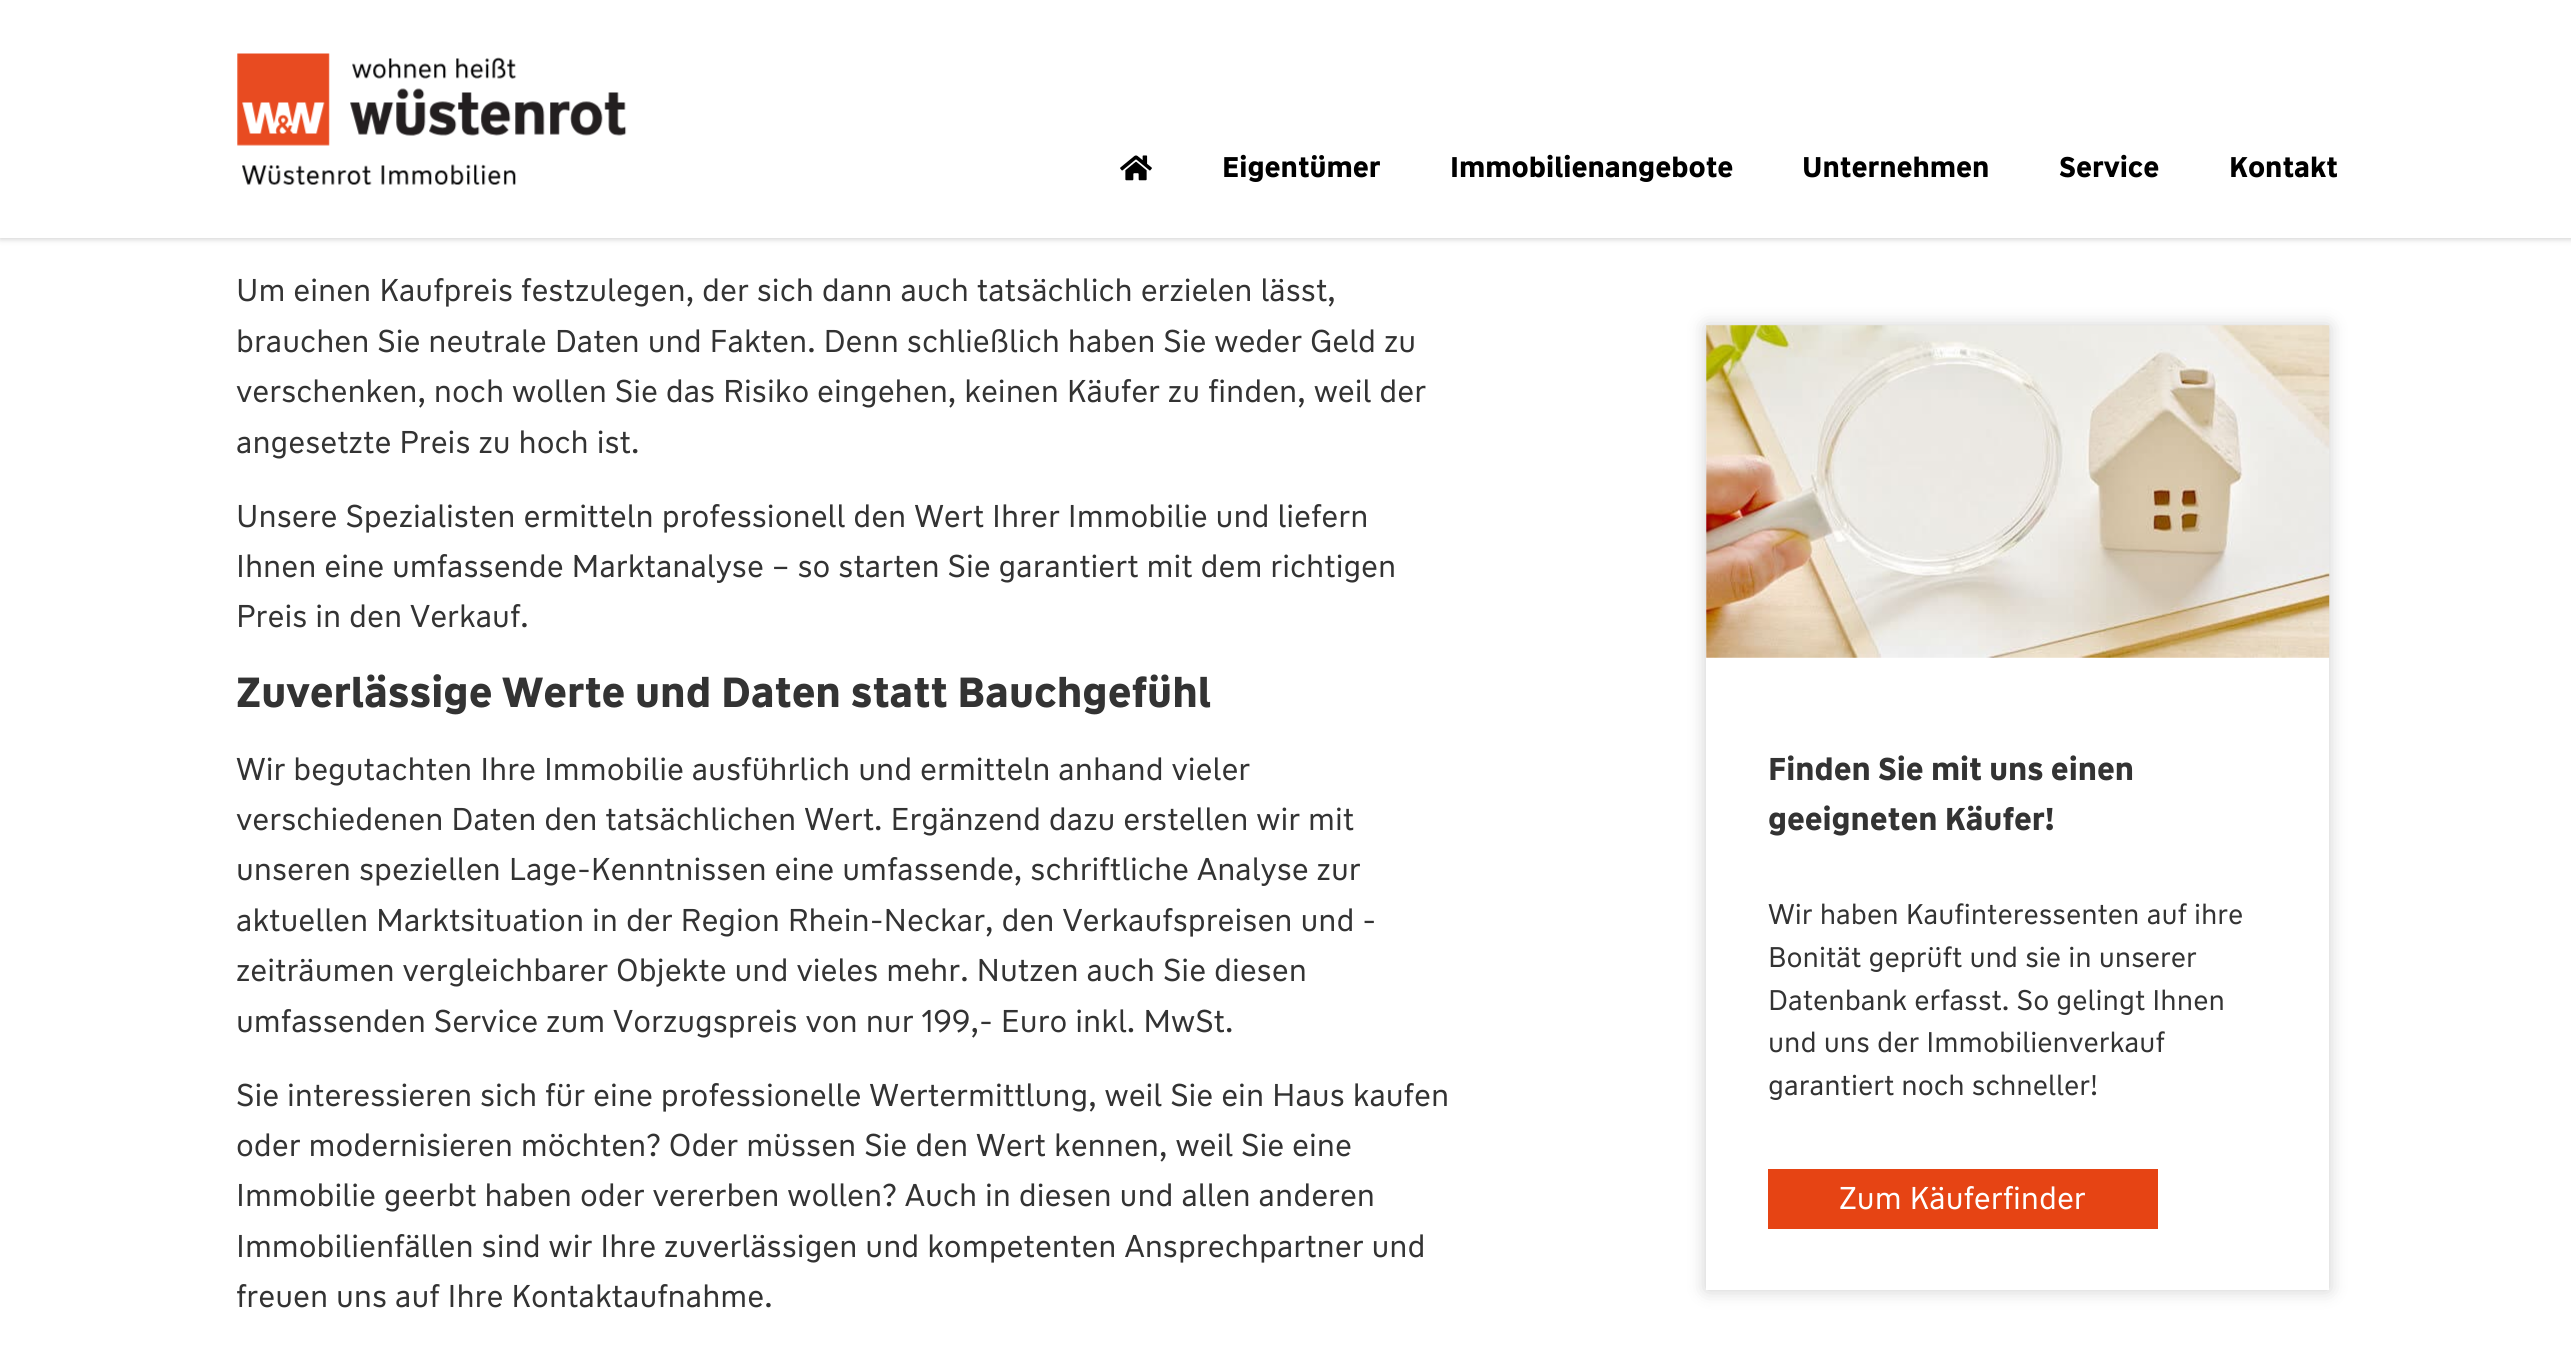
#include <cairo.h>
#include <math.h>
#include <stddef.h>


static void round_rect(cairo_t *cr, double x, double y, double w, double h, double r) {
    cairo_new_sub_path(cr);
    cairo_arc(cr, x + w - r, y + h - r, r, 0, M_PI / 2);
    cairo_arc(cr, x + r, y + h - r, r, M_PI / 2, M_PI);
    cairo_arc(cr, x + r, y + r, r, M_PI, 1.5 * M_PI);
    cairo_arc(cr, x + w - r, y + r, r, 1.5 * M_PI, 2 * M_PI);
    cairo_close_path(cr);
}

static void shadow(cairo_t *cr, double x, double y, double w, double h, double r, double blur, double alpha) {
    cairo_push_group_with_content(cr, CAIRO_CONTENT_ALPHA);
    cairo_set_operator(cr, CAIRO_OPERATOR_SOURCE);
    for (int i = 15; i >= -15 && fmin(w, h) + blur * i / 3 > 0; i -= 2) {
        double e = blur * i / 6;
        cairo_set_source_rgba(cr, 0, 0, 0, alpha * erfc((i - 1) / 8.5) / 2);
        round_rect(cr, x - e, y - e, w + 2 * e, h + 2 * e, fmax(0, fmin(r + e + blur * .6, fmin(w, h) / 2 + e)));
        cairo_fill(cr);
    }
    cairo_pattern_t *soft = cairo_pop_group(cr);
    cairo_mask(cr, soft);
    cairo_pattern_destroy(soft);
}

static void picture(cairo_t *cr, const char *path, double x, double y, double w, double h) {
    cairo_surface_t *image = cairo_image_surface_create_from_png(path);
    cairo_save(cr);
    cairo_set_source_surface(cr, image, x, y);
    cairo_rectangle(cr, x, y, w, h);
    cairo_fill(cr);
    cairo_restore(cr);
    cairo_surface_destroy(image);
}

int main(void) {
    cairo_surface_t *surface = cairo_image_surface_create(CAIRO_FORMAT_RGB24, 2571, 1362);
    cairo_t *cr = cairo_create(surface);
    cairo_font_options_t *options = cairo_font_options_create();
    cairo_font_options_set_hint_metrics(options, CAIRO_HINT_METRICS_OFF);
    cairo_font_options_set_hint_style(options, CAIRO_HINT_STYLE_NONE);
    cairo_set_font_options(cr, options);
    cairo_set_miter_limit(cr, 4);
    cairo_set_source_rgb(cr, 1, 1, 1);
    cairo_paint(cr);
    cairo_set_source_rgb(cr, 0, 0, 0);
    shadow(cr, 0, 0, 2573, 238, 0, 3.5, 0.25);
    cairo_set_source_rgb(cr, 1, 1, 1);
    cairo_rectangle(cr, 0, 0, 2571, 238);
    cairo_fill(cr);
    picture(cr, "img1.png", 237, 53, 390, 132);
    picture(cr, "img2.png", 1120, 155, 32, 26);
    cairo_select_font_face(cr, "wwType", CAIRO_FONT_SLANT_NORMAL, CAIRO_FONT_WEIGHT_BOLD);
    cairo_set_font_size(cr, 28.4);
    cairo_set_source_rgb(cr, 0, 0, 0);
    cairo_move_to(cr, 1222, 177);
    cairo_show_text(cr, "Eigentümer");
    cairo_move_to(cr, 1450, 177);
    cairo_show_text(cr, "Immobilienangebote");
    cairo_move_to(cr, 1802, 177);
    cairo_show_text(cr, "Unternehmen");
    cairo_move_to(cr, 2059, 177);
    cairo_show_text(cr, "Service");
    cairo_move_to(cr, 2229, 177);
    cairo_show_text(cr, "Kontakt");
    cairo_select_font_face(cr, "wwType", CAIRO_FONT_SLANT_NORMAL, CAIRO_FONT_WEIGHT_NORMAL);
    cairo_set_font_size(cr, 31.5);
    cairo_set_source_rgb(cr, 0.2, 0.2, 0.2);
    cairo_move_to(cr, 236, 301);
    cairo_show_text(cr, "Um einen Kaufpreis festzulegen, der sich dann auch tatsächlich erzielen lässt,");
    cairo_move_to(cr, 236, 352);
    cairo_show_text(cr, "brauchen Sie neutrale Daten und Fakten. Denn schließlich haben Sie weder Geld zu");
    cairo_move_to(cr, 236, 402);
    cairo_show_text(cr, "verschenken, noch wollen Sie das Risiko eingehen, keinen Käufer zu finden, weil der");
    cairo_move_to(cr, 236, 453);
    cairo_show_text(cr, "angesetzte Preis zu hoch ist.");
    cairo_move_to(cr, 236, 527);
    cairo_show_text(cr, "Unsere Spezialisten ermitteln professionell den Wert Ihrer Immobilie und liefern");
    cairo_move_to(cr, 236, 577);
    cairo_show_text(cr, "Ihnen eine umfassende Marktanalyse – so starten Sie garantiert mit dem richtigen");
    cairo_move_to(cr, 236, 627);
    cairo_show_text(cr, "Preis in den Verkauf.");
    cairo_select_font_face(cr, "wwType", CAIRO_FONT_SLANT_NORMAL, CAIRO_FONT_WEIGHT_BOLD);
    cairo_set_font_size(cr, 42);
    cairo_move_to(cr, 236, 707);
    cairo_show_text(cr, "Zuverlässige Werte und Daten statt Bauchgefühl");
    cairo_select_font_face(cr, "wwType", CAIRO_FONT_SLANT_NORMAL, CAIRO_FONT_WEIGHT_NORMAL);
    cairo_set_font_size(cr, 31.5);
    cairo_move_to(cr, 236, 780);
    cairo_show_text(cr, "Wir begutachten Ihre Immobilie ausführlich und ermitteln anhand vieler");
    cairo_move_to(cr, 236, 830);
    cairo_show_text(cr, "verschiedenen Daten den tatsächlichen Wert. Ergänzend dazu erstellen wir mit");
    cairo_move_to(cr, 236, 880);
    cairo_show_text(cr, "unseren speziellen Lage-Kenntnissen eine umfassende, schriftliche Analyse zur");
    cairo_move_to(cr, 236, 931);
    cairo_show_text(cr, "aktuellen Marktsituation in der Region Rhein-Neckar, den Verkaufspreisen und -");
    cairo_move_to(cr, 236, 981);
    cairo_show_text(cr, "zeiträumen vergleichbarer Objekte und vieles mehr. Nutzen auch Sie diesen");
    cairo_move_to(cr, 236, 1032);
    cairo_show_text(cr, "umfassenden Service zum Vorzugspreis von nur 199,- Euro inkl. MwSt.");
    cairo_move_to(cr, 236, 1106);
    cairo_show_text(cr, "Sie interessieren sich für eine professionelle Wertermittlung, weil Sie ein Haus kaufen");
    cairo_move_to(cr, 236, 1156);
    cairo_show_text(cr, "oder modernisieren möchten? Oder müssen Sie den Wert kennen, weil Sie eine");
    cairo_move_to(cr, 236, 1206);
    cairo_show_text(cr, "Immobilie geerbt haben oder vererben wollen? Auch in diesen und allen anderen");
    cairo_move_to(cr, 236, 1257);
    cairo_show_text(cr, "Immobilienfällen sind wir Ihre zuverlässigen und kompetenten Ansprechpartner und");
    cairo_move_to(cr, 236, 1307);
    cairo_show_text(cr, "freuen uns auf Ihre Kontaktaufnahme.");
    cairo_set_source_rgb(cr, 0, 0, 0);
    shadow(cr, 1706, 326, 623, 964, 0, 9, 0.2);
    cairo_set_source_rgb(cr, 1, 1, 1);
    cairo_rectangle(cr, 1706, 326, 623, 964);
    cairo_fill(cr);
    picture(cr, "img3.png", 1706, 325, 624, 333);
    cairo_select_font_face(cr, "wwType", CAIRO_FONT_SLANT_NORMAL, CAIRO_FONT_WEIGHT_BOLD);
    cairo_set_source_rgb(cr, 0.2, 0.2, 0.2);
    cairo_move_to(cr, 1768, 780);
    cairo_show_text(cr, "Finden Sie mit uns einen");
    cairo_move_to(cr, 1768, 830);
    cairo_show_text(cr, "geeigneten Käufer!");
    cairo_select_font_face(cr, "wwType", CAIRO_FONT_SLANT_NORMAL, CAIRO_FONT_WEIGHT_NORMAL);
    cairo_set_font_size(cr, 28.4);
    cairo_move_to(cr, 1768, 924);
    cairo_show_text(cr, "Wir haben Kaufinteressenten auf ihre");
    cairo_move_to(cr, 1768, 967);
    cairo_show_text(cr, "Bonität geprüft und sie in unserer");
    cairo_move_to(cr, 1768, 1010);
    cairo_show_text(cr, "Datenbank erfasst. So gelingt Ihnen");
    cairo_move_to(cr, 1768, 1052);
    cairo_show_text(cr, "und uns der Immobilienverkauf");
    cairo_move_to(cr, 1768, 1095);
    cairo_show_text(cr, "garantiert noch schneller!");
    cairo_set_source_rgb(cr, 0.902, 0.267, 0.082);
    cairo_rectangle(cr, 1768, 1169, 390, 60);
    cairo_fill(cr);
    cairo_set_font_size(cr, 31.5);
    cairo_set_source_rgb(cr, 1, 1, 1);
    cairo_move_to(cr, 1839, 1209);
    cairo_show_text(cr, "Zum Käuferfinder");
    cairo_surface_write_to_png(surface, "page.png");
    cairo_font_options_destroy(options);
    cairo_destroy(cr);
    cairo_surface_destroy(surface);
    return 0;
}
